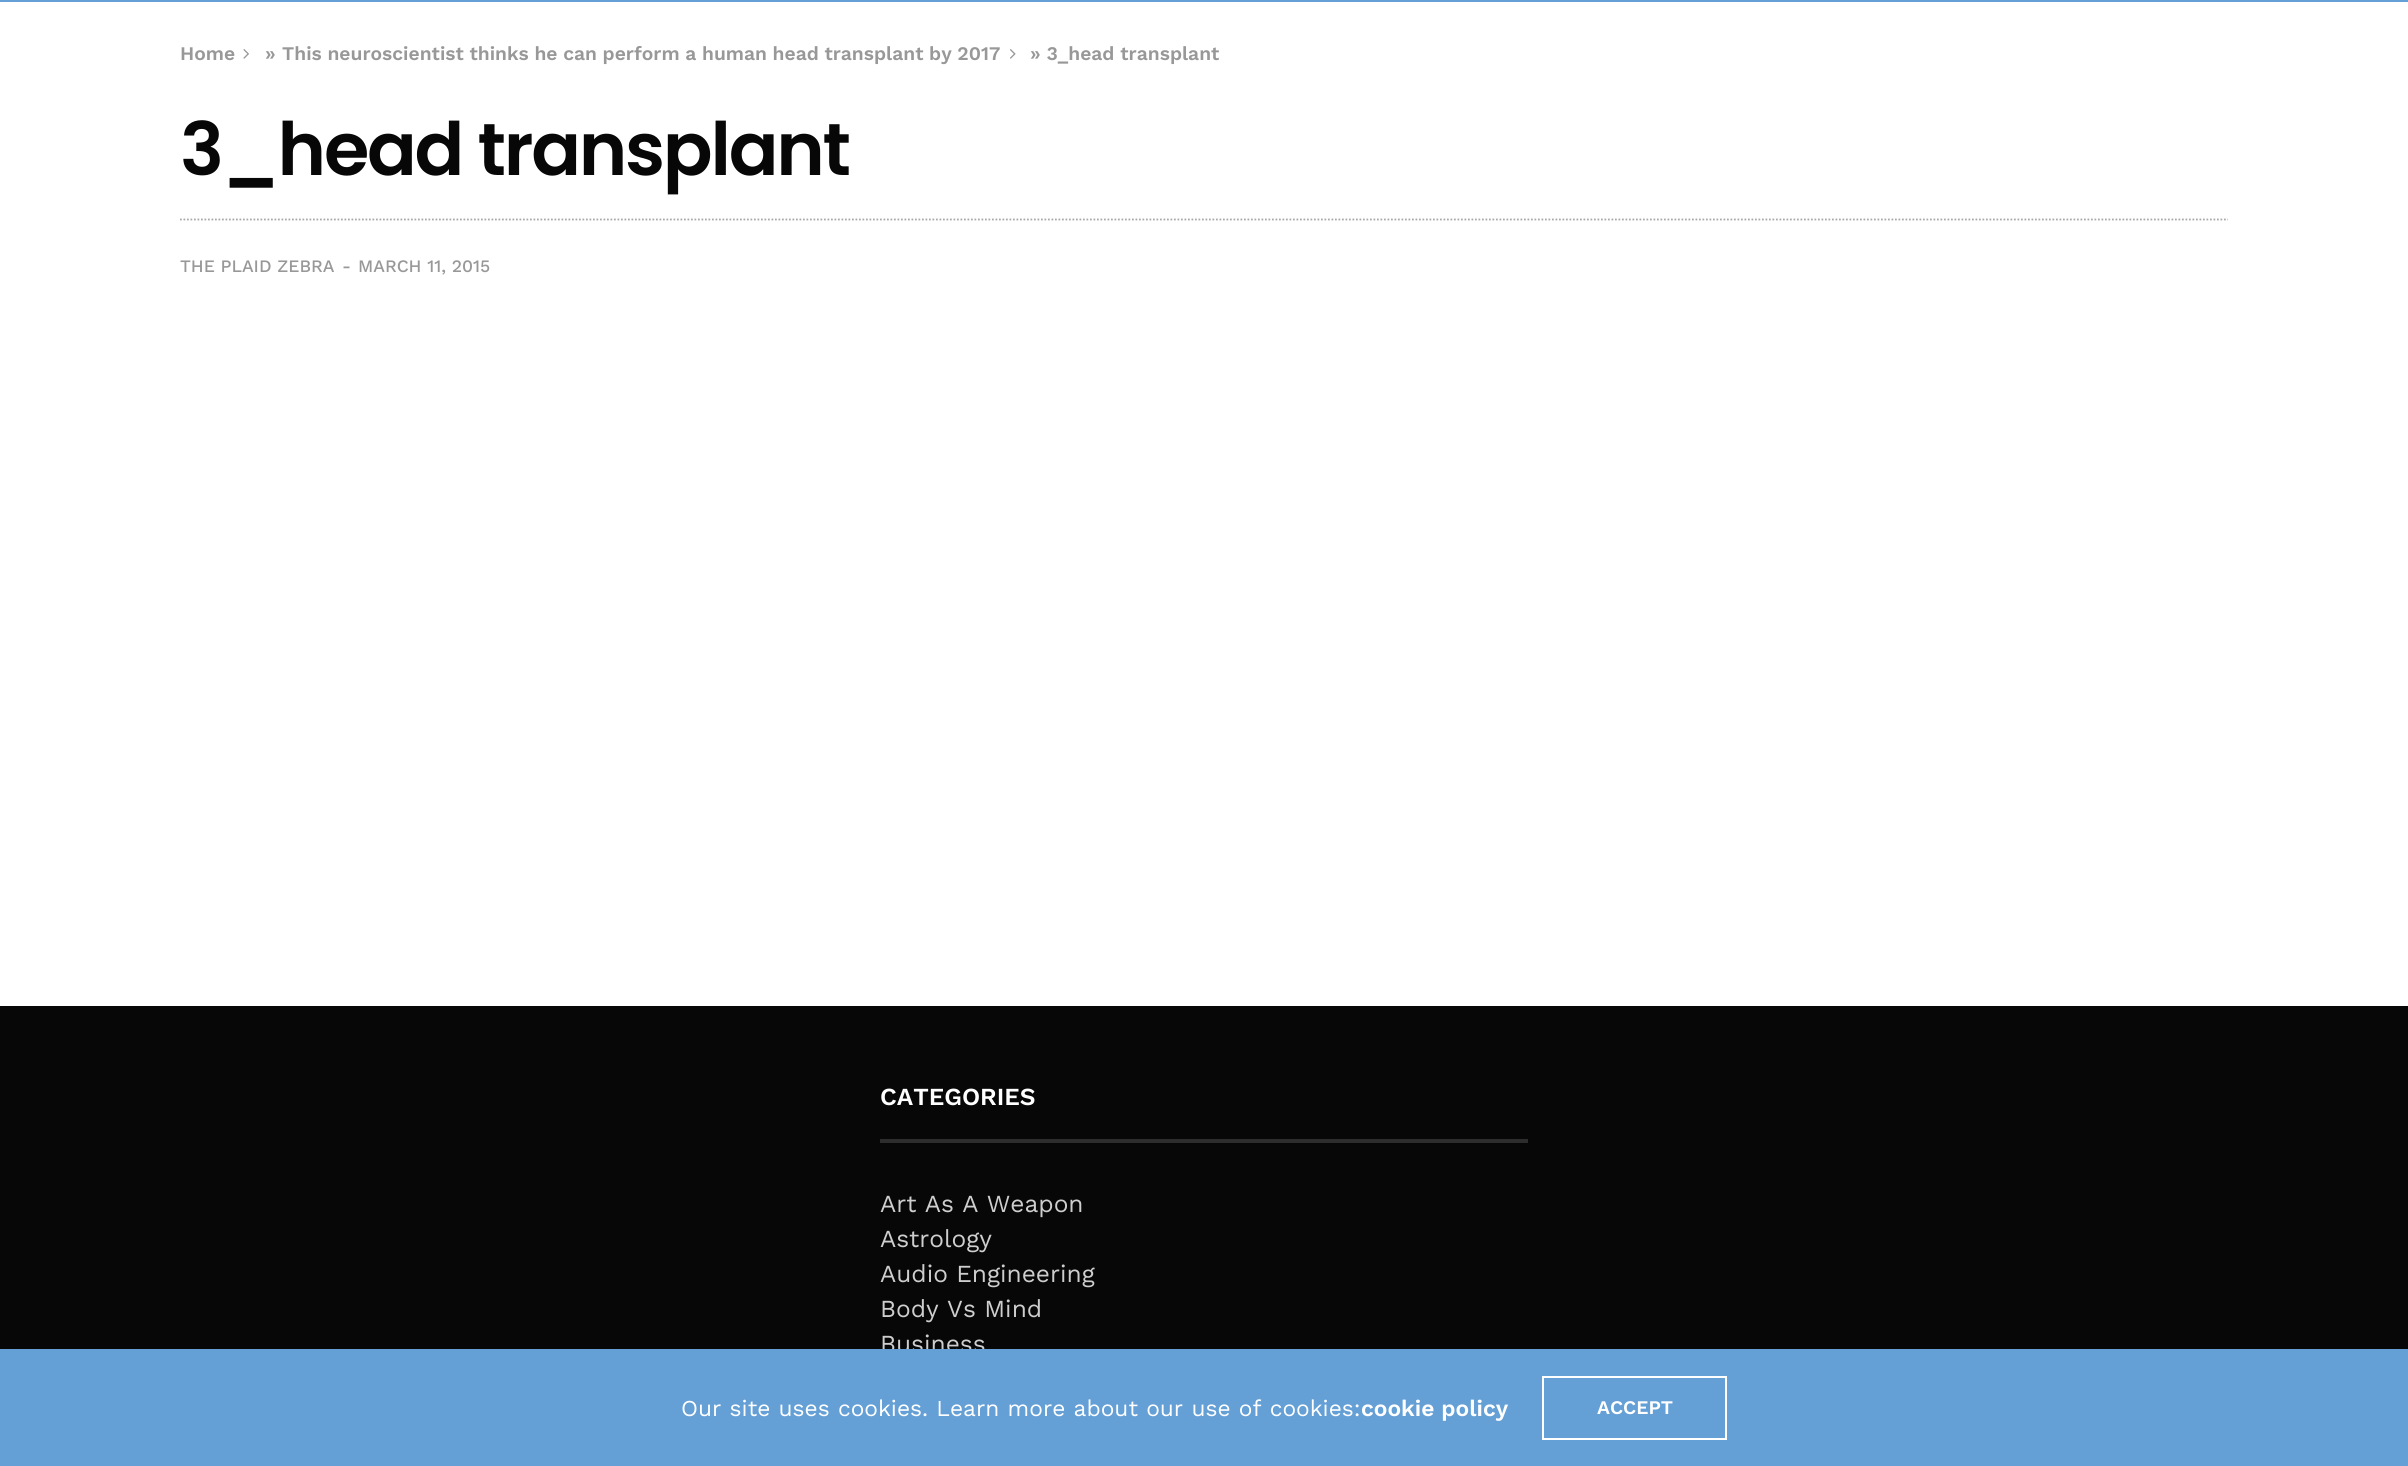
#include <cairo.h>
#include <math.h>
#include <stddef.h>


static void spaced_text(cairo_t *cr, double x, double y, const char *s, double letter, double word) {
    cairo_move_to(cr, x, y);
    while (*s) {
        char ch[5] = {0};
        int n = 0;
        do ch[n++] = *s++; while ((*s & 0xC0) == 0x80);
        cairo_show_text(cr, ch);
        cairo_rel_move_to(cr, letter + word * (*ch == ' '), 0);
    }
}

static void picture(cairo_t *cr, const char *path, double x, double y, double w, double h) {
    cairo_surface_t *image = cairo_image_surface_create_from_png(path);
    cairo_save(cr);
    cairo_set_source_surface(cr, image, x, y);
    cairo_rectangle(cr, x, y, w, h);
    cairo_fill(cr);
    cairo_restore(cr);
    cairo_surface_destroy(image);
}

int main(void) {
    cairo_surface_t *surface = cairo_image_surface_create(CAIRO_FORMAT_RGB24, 2408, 1466);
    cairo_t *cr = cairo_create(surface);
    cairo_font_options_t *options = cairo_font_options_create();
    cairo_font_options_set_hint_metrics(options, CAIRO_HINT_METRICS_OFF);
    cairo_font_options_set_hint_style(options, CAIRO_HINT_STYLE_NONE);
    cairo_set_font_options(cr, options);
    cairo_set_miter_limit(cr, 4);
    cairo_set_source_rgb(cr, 1, 1, 1);
    cairo_paint(cr);
    cairo_set_source_rgb(cr, 0.392, 0.624, 0.839);
    cairo_rectangle(cr, 0, 0, 2408, 2);
    cairo_fill(cr);
    cairo_select_font_face(cr, "Work Sans SemiBold", CAIRO_FONT_SLANT_NORMAL, CAIRO_FONT_WEIGHT_NORMAL);
    cairo_set_font_size(cr, 19.25);
    cairo_set_source_rgb(cr, 0.596, 0.596, 0.596);
    cairo_move_to(cr, 180, 60);
    cairo_show_text(cr, "Home");
    picture(cr, "img1.png", 243, 49, 6, 10);
    cairo_move_to(cr, 265, 60);
    cairo_show_text(cr, "»");
    spaced_text(cr, 282, 60, "This neuroscientist thinks he can perform a human head transplant by 2017", 0, -0.25);
    picture(cr, "img2.png", 1010, 49, 6, 10);
    cairo_move_to(cr, 1030, 60);
    cairo_show_text(cr, "» 3_head transplant");
    cairo_new_path(cr);
    cairo_move_to(cr, 180, 219.5);
    cairo_line_to(cr, 2228, 219.5);
    cairo_set_source_rgb(cr, 0.659, 0.659, 0.659);
    cairo_set_line_width(cr, 1.8);
    cairo_set_dash(cr, (double[]){1.75, 1.75}, 2, 0);
    cairo_stroke(cr);
    cairo_select_font_face(cr, "Poppins SemiBold", CAIRO_FONT_SLANT_NORMAL, CAIRO_FONT_WEIGHT_NORMAL);
    cairo_set_font_size(cr, 73.5);
    cairo_set_source_rgb(cr, 0.031, 0.031, 0.031);
    spaced_text(cr, 180, 175, "3_head transplant", -2.25, 0);
    cairo_select_font_face(cr, "Work Sans Medium", CAIRO_FONT_SLANT_NORMAL, CAIRO_FONT_WEIGHT_NORMAL);
    cairo_set_font_size(cr, 17.5);
    cairo_set_source_rgb(cr, 0.596, 0.596, 0.596);
    cairo_move_to(cr, 180, 272);
    cairo_show_text(cr, "THE PLAID ZEBRA");
    cairo_move_to(cr, 342, 272);
    cairo_show_text(cr, "-");
    cairo_move_to(cr, 358, 272);
    cairo_show_text(cr, "MARCH 11, 2015");
    cairo_set_source_rgb(cr, 0.031, 0.031, 0.031);
    cairo_rectangle(cr, 0, 1006, 2408, 343);
    cairo_fill(cr);
    cairo_set_source_rgb(cr, 0.176, 0.176, 0.176);
    cairo_rectangle(cr, 880, 1139, 648, 4);
    cairo_fill(cr);
    cairo_select_font_face(cr, "Work Sans SemiBold", CAIRO_FONT_SLANT_NORMAL, CAIRO_FONT_WEIGHT_NORMAL);
    cairo_set_font_size(cr, 24.5);
    cairo_set_source_rgb(cr, 1, 1, 1);
    cairo_move_to(cr, 880, 1105);
    cairo_show_text(cr, "CATEGORIES");
    cairo_select_font_face(cr, "Work Sans", CAIRO_FONT_SLANT_NORMAL, CAIRO_FONT_WEIGHT_NORMAL);
    cairo_set_source_rgb(cr, 0.808, 0.808, 0.808);
    cairo_move_to(cr, 880, 1212);
    cairo_show_text(cr, "Art As A Weapon");
    cairo_move_to(cr, 880, 1247);
    cairo_show_text(cr, "Astrology");
    cairo_move_to(cr, 880, 1282);
    cairo_show_text(cr, "Audio Engineering");
    cairo_move_to(cr, 880, 1317);
    cairo_show_text(cr, "Body Vs Mind");
    cairo_move_to(cr, 880, 1352);
    cairo_show_text(cr, "Business");
    cairo_set_source_rgb(cr, 0.392, 0.624, 0.839);
    cairo_rectangle(cr, 0, 1349, 2408, 117);
    cairo_fill(cr);
    cairo_set_font_size(cr, 22.75);
    cairo_set_source_rgb(cr, 1, 1, 1);
    spaced_text(cr, 681, 1416, "Our site uses cookies. Learn more about our use of cookies:", 0, 0.5);
    cairo_select_font_face(cr, "Work Sans SemiBold", CAIRO_FONT_SLANT_NORMAL, CAIRO_FONT_WEIGHT_NORMAL);
    cairo_move_to(cr, 1361, 1416);
    cairo_show_text(cr, "cookie policy");
    cairo_rectangle(cr, 1543, 1377, 183, 62);
    cairo_set_line_width(cr, 2);
    cairo_set_dash(cr, NULL, 0, 0);
    cairo_stroke(cr);
    cairo_set_font_size(cr, 19.25);
    cairo_move_to(cr, 1597, 1414);
    cairo_show_text(cr, "ACCEPT");
    cairo_surface_write_to_png(surface, "page.png");
    cairo_font_options_destroy(options);
    cairo_destroy(cr);
    cairo_surface_destroy(surface);
    return 0;
}
